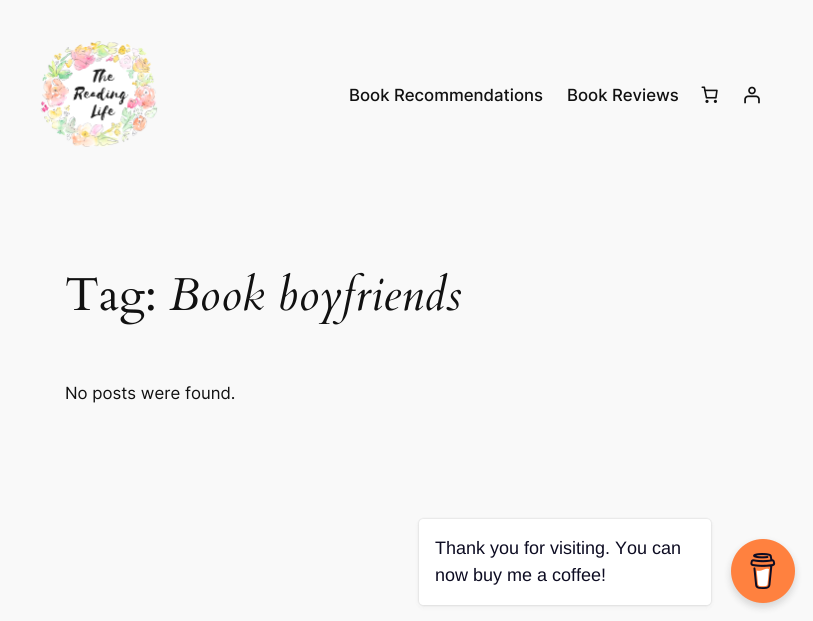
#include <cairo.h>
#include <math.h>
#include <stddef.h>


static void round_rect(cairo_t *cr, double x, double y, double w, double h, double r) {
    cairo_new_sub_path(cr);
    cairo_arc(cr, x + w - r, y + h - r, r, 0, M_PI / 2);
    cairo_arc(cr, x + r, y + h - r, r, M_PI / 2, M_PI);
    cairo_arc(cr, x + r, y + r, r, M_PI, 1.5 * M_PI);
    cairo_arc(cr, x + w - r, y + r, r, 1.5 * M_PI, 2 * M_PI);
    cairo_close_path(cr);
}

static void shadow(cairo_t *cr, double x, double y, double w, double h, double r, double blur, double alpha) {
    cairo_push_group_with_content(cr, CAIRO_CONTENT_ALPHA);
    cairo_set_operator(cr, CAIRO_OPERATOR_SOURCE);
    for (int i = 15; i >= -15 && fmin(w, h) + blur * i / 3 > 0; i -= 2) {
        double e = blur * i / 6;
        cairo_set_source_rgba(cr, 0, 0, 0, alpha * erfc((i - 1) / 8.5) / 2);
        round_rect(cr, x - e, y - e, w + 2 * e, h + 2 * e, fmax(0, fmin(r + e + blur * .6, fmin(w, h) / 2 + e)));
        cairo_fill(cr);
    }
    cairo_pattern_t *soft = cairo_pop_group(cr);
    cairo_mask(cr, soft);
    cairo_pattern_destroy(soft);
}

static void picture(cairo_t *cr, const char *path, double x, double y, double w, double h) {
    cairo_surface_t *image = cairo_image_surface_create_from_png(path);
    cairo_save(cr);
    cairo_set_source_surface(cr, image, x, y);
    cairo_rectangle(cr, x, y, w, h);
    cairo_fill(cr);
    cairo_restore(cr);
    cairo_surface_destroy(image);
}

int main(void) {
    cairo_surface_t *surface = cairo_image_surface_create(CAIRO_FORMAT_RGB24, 813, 621);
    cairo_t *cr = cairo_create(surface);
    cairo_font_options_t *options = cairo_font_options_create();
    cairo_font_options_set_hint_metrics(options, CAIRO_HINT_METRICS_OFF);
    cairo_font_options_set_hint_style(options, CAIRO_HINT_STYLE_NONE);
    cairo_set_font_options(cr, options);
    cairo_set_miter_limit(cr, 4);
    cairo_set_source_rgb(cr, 0.976, 0.976, 0.976);
    cairo_paint(cr);
    picture(cr, "img1.png", 40, 41, 118, 106);
    cairo_select_font_face(cr, "Inter Medium", CAIRO_FONT_SLANT_NORMAL, CAIRO_FONT_WEIGHT_NORMAL);
    cairo_set_font_size(cr, 16.75);
    cairo_set_source_rgb(cr, 0.067, 0.067, 0.067);
    cairo_move_to(cr, 349, 101);
    cairo_show_text(cr, "Book Recommendations");
    cairo_move_to(cr, 567, 101);
    cairo_show_text(cr, "Book Reviews");
    picture(cr, "img2.png", 701, 86, 17, 17);
    picture(cr, "img3.png", 744, 86, 16, 18);
    picture(cr, "img4.png", 66, 277, 88, 48);
    cairo_select_font_face(cr, "Cardo", CAIRO_FONT_SLANT_ITALIC, CAIRO_FONT_WEIGHT_NORMAL);
    cairo_set_font_size(cr, 46.25);
    cairo_move_to(cr, 169, 310);
    cairo_show_text(cr, "Book boyfriends");
    cairo_select_font_face(cr, "Inter", CAIRO_FONT_SLANT_NORMAL, CAIRO_FONT_WEIGHT_NORMAL);
    cairo_set_font_size(cr, 16.75);
    cairo_move_to(cr, 65, 399);
    cairo_show_text(cr, "No posts were found.");
    cairo_set_source_rgb(cr, 0, 0, 0);
    shadow(cr, 419, 519, 292, 86, 4, 1, 0.15);
    shadow(cr, 419, 521, 292, 86, 4, 2.5, 0.05);
    cairo_set_source_rgb(cr, 1, 1, 1);
    round_rect(cr, 419, 519, 292, 86, 4);
    cairo_fill(cr);
    cairo_select_font_face(cr, "Liberation Sans", CAIRO_FONT_SLANT_NORMAL, CAIRO_FONT_WEIGHT_NORMAL);
    cairo_set_font_size(cr, 18);
    cairo_set_source_rgb(cr, 0.051, 0.047, 0.133);
    cairo_move_to(cr, 435, 554);
    cairo_show_text(cr, "Thank you for visiting. You can");
    cairo_move_to(cr, 435, 581);
    cairo_show_text(cr, "now buy me a coffee!");
    cairo_set_source_rgb(cr, 0, 0, 0);
    shadow(cr, 731, 543, 64, 64, 32, 4, 0.15);
    cairo_set_source_rgb(cr, 1, 0.506, 0.247);
    cairo_arc(cr, 763, 571, 32, 0, 2 * M_PI);
    cairo_fill(cr);
    picture(cr, "img5.png", 750, 553, 26, 36);
    cairo_surface_write_to_png(surface, "page.png");
    cairo_font_options_destroy(options);
    cairo_destroy(cr);
    cairo_surface_destroy(surface);
    return 0;
}
